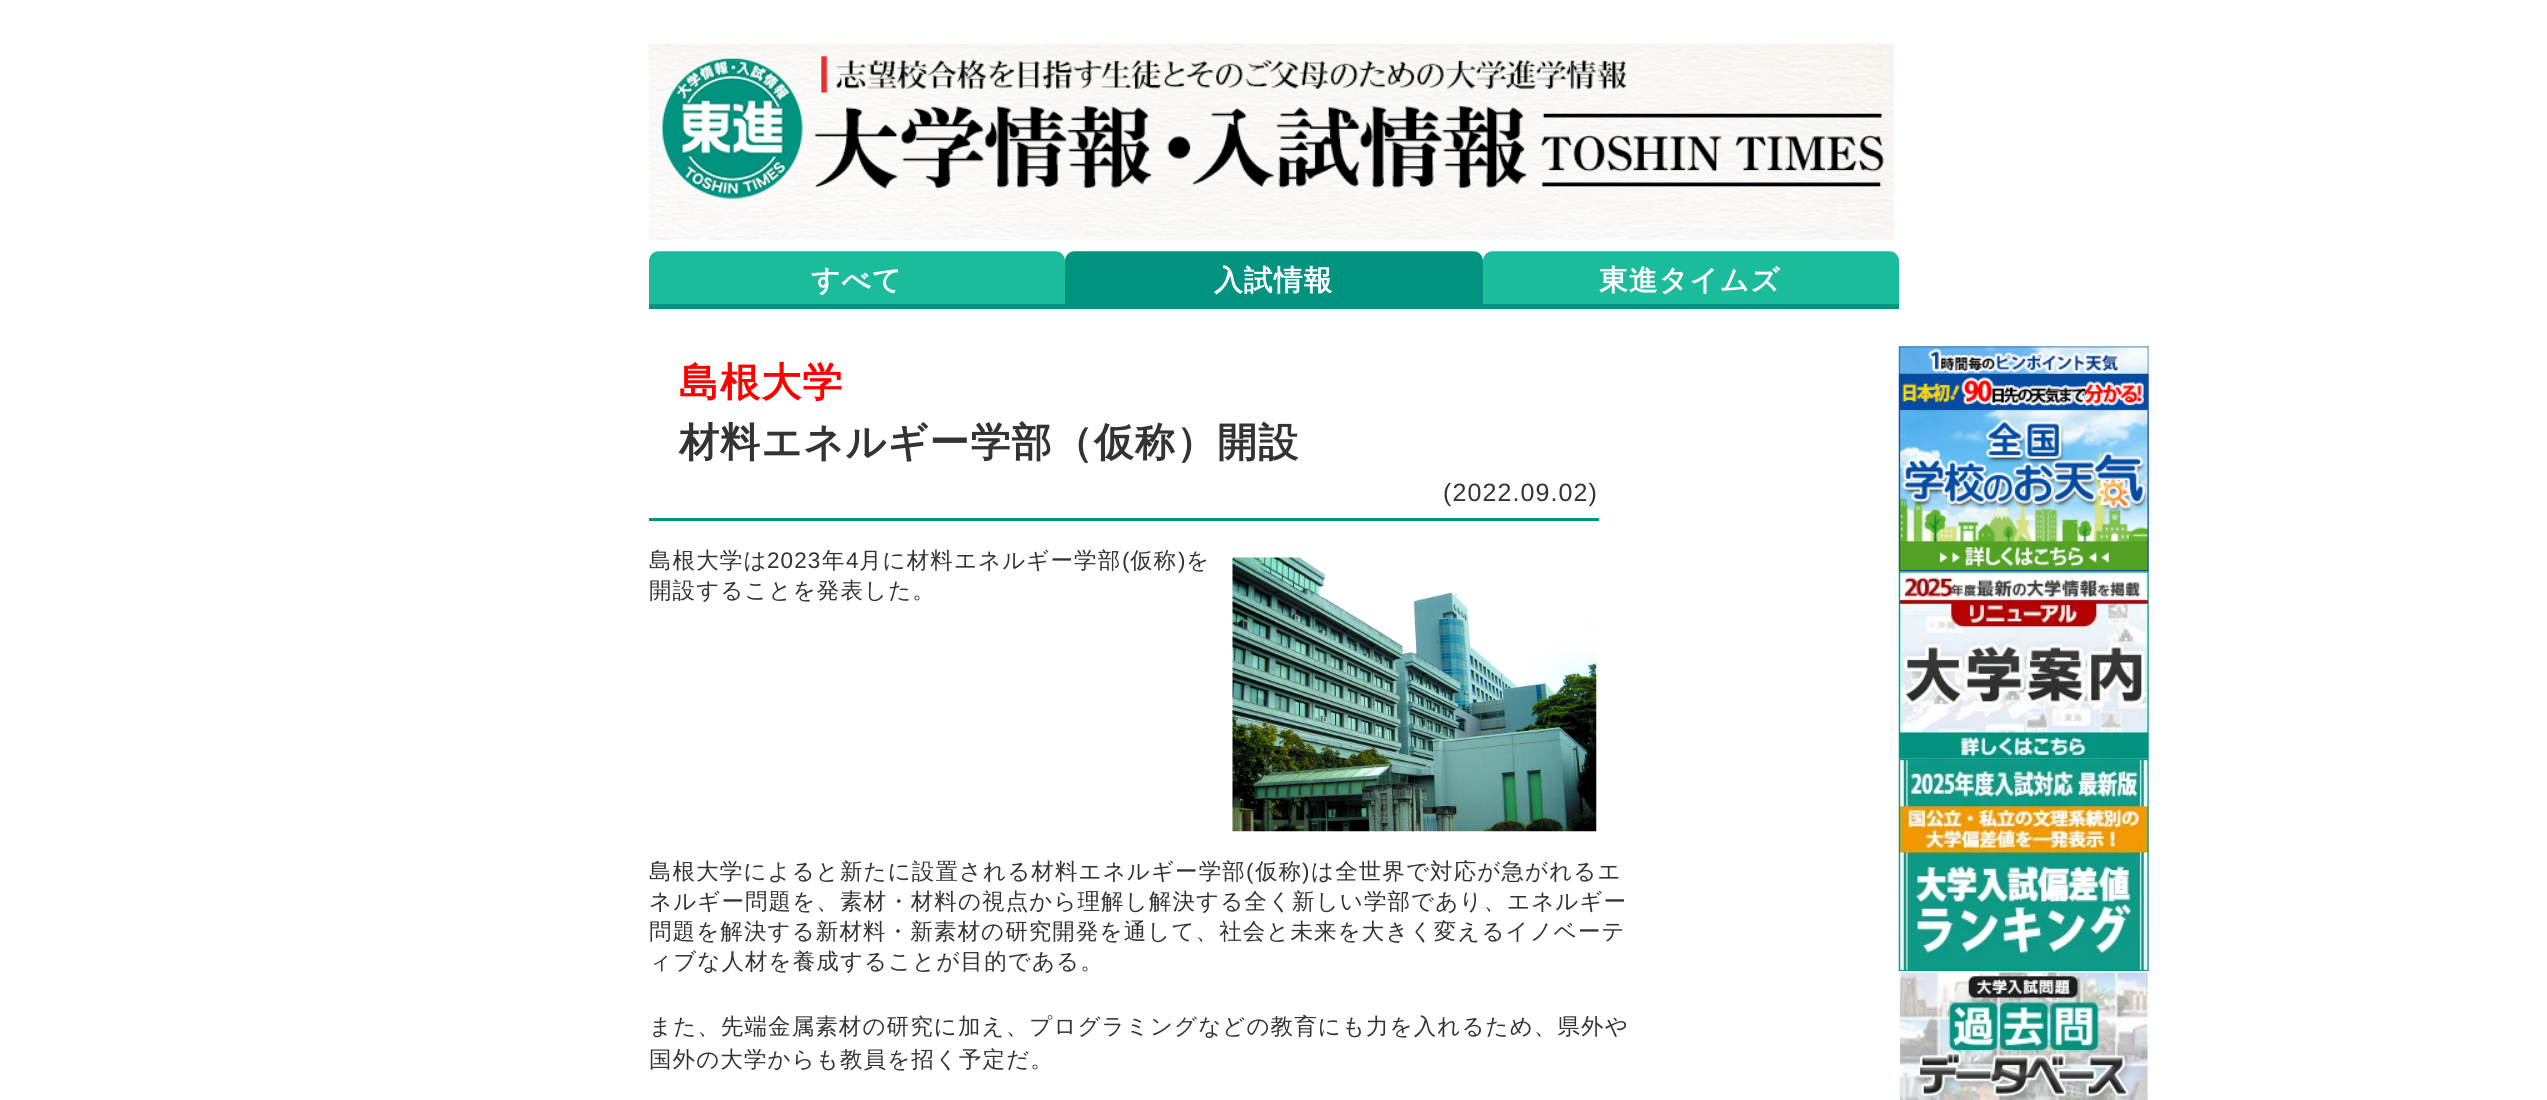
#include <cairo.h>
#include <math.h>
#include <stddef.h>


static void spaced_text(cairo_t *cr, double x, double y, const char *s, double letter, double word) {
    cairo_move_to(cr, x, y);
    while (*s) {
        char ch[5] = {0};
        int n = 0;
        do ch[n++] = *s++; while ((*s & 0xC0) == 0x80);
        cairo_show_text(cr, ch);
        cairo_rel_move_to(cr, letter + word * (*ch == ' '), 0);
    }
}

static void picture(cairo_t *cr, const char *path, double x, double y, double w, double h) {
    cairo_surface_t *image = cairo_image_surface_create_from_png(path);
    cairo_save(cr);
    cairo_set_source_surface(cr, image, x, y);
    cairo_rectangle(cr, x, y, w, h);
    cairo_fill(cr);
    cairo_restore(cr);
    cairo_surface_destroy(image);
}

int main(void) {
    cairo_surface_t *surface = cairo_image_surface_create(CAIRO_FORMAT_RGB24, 2547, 1100);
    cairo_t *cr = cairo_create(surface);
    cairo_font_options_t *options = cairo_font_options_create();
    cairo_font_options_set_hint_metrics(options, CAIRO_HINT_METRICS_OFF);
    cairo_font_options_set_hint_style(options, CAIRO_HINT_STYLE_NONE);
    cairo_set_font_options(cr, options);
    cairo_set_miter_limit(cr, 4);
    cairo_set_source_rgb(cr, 1, 1, 1);
    cairo_paint(cr);
    cairo_set_source_rgb(cr, 0.106, 0.737, 0.608);
    cairo_new_path(cr);
    cairo_move_to(cr, 659, 251);
    cairo_line_to(cr, 1055, 251);
    cairo_curve_to(cr, 1060.5, 251, 1065, 255.5, 1065, 261);
    cairo_line_to(cr, 1065, 309);
    cairo_line_to(cr, 649, 309);
    cairo_line_to(cr, 649, 261);
    cairo_curve_to(cr, 649, 255.5, 653.5, 251, 659, 251);
    cairo_close_path(cr);
    cairo_fill(cr);
    cairo_set_source_rgb(cr, 0, 0.576, 0.502);
    cairo_new_path(cr);
    cairo_move_to(cr, 1075, 251);
    cairo_line_to(cr, 1473, 251);
    cairo_curve_to(cr, 1478.5, 251, 1483, 255.5, 1483, 261);
    cairo_line_to(cr, 1483, 309);
    cairo_line_to(cr, 1065, 309);
    cairo_line_to(cr, 1065, 261);
    cairo_curve_to(cr, 1065, 255.5, 1069.5, 251, 1075, 251);
    cairo_close_path(cr);
    cairo_fill(cr);
    cairo_set_source_rgb(cr, 0.106, 0.737, 0.608);
    cairo_new_path(cr);
    cairo_move_to(cr, 1493, 251);
    cairo_line_to(cr, 1889, 251);
    cairo_curve_to(cr, 1894.5, 251, 1899, 255.5, 1899, 261);
    cairo_line_to(cr, 1899, 309);
    cairo_line_to(cr, 1483, 309);
    cairo_line_to(cr, 1483, 261);
    cairo_curve_to(cr, 1483, 255.5, 1487.5, 251, 1493, 251);
    cairo_close_path(cr);
    cairo_fill(cr);
    picture(cr, "img1.png", 648, 43, 1246, 209);
    cairo_set_source_rgb(cr, 0, 0.576, 0.502);
    cairo_rectangle(cr, 649, 304, 416, 5);
    cairo_fill(cr);
    cairo_select_font_face(cr, "WenQuanYi Zen Hei", CAIRO_FONT_SLANT_NORMAL, CAIRO_FONT_WEIGHT_BOLD);
    cairo_set_font_size(cr, 28.75);
    cairo_set_source_rgb(cr, 1, 1, 1);
    spaced_text(cr, 811, 290, "すべて", 1.1, 0);
    spaced_text(cr, 1214, 290, "入試情報", 1.1, 0);
    cairo_set_source_rgb(cr, 0, 0.576, 0.502);
    cairo_rectangle(cr, 1483, 304, 416, 5);
    cairo_fill(cr);
    cairo_set_source_rgb(cr, 1, 1, 1);
    spaced_text(cr, 1599, 290, "東進タイムズ", 1.1, 0);
    cairo_set_source_rgb(cr, 0, 0.576, 0.502);
    cairo_rectangle(cr, 649, 518, 950, 3);
    cairo_fill(cr);
    cairo_set_font_size(cr, 40);
    cairo_set_source_rgb(cr, 1, 0, 0);
    spaced_text(cr, 679, 396, "島根大学", 1.1, 0);
    cairo_set_source_rgb(cr, 0.2, 0.2, 0.2);
    spaced_text(cr, 679, 456, "材料エネルギー学部（仮称）開設", 1.1, 0);
    cairo_select_font_face(cr, "Liberation Sans", CAIRO_FONT_SLANT_NORMAL, CAIRO_FONT_WEIGHT_NORMAL);
    cairo_set_font_size(cr, 25);
    spaced_text(cr, 1443, 501, "(2022.09.02)", 1.1, 0);
    cairo_select_font_face(cr, "WenQuanYi Zen Hei Medium", CAIRO_FONT_SLANT_NORMAL, CAIRO_FONT_WEIGHT_NORMAL);
    cairo_set_font_size(cr, 22.5);
    spaced_text(cr, 649, 568, "島根大学は", 1.1, 0);
    cairo_select_font_face(cr, "Liberation Sans", CAIRO_FONT_SLANT_NORMAL, CAIRO_FONT_WEIGHT_NORMAL);
    spaced_text(cr, 767, 568, "2023", 1.1, 0);
    cairo_select_font_face(cr, "WenQuanYi Zen Hei Medium", CAIRO_FONT_SLANT_NORMAL, CAIRO_FONT_WEIGHT_NORMAL);
    spaced_text(cr, 822, 568, "年", 1.1, 0);
    cairo_select_font_face(cr, "Liberation Sans", CAIRO_FONT_SLANT_NORMAL, CAIRO_FONT_WEIGHT_NORMAL);
    spaced_text(cr, 846, 568, "4", 1.1, 0);
    cairo_select_font_face(cr, "WenQuanYi Zen Hei Medium", CAIRO_FONT_SLANT_NORMAL, CAIRO_FONT_WEIGHT_NORMAL);
    spaced_text(cr, 859, 568, "月に材料エネルギー学部", 1.1, 0);
    cairo_select_font_face(cr, "Liberation Sans", CAIRO_FONT_SLANT_NORMAL, CAIRO_FONT_WEIGHT_NORMAL);
    spaced_text(cr, 1122, 568, "(", 1.1, 0);
    cairo_select_font_face(cr, "WenQuanYi Zen Hei Medium", CAIRO_FONT_SLANT_NORMAL, CAIRO_FONT_WEIGHT_NORMAL);
    spaced_text(cr, 1130, 568, "仮称", 1.1, 0);
    cairo_select_font_face(cr, "Liberation Sans", CAIRO_FONT_SLANT_NORMAL, CAIRO_FONT_WEIGHT_NORMAL);
    spaced_text(cr, 1178, 568, ")", 1.1, 0);
    cairo_select_font_face(cr, "WenQuanYi Zen Hei Medium", CAIRO_FONT_SLANT_NORMAL, CAIRO_FONT_WEIGHT_NORMAL);
    spaced_text(cr, 1186, 568, "を", 1.1, 0);
    spaced_text(cr, 649, 598, "開設することを発表した。", 1.1, 0);
    picture(cr, "img2.png", 1232, 557, 365, 275);
    spaced_text(cr, 649, 879, "島根大学によると新たに設置される材料エネルギー学部", 1.1, 0);
    cairo_select_font_face(cr, "Liberation Sans", CAIRO_FONT_SLANT_NORMAL, CAIRO_FONT_WEIGHT_NORMAL);
    spaced_text(cr, 1246, 879, "(", 1.1, 0);
    cairo_select_font_face(cr, "WenQuanYi Zen Hei Medium", CAIRO_FONT_SLANT_NORMAL, CAIRO_FONT_WEIGHT_NORMAL);
    spaced_text(cr, 1255, 879, "仮称", 1.1, 0);
    cairo_select_font_face(cr, "Liberation Sans", CAIRO_FONT_SLANT_NORMAL, CAIRO_FONT_WEIGHT_NORMAL);
    spaced_text(cr, 1302, 879, ")", 1.1, 0);
    cairo_select_font_face(cr, "WenQuanYi Zen Hei Medium", CAIRO_FONT_SLANT_NORMAL, CAIRO_FONT_WEIGHT_NORMAL);
    spaced_text(cr, 1311, 879, "は全世界で対応が急がれるエ", 1.1, 0);
    spaced_text(cr, 649, 909, "ネルギー問題を、素材・材料の視点から理解し解決する全く新しい学部であり、エネルギー", 1.1, 0);
    spaced_text(cr, 649, 939, "問題を解決する新材料・新素材の研究開発を通して、社会と未来を大きく変えるイノベーテ", 1.1, 0);
    spaced_text(cr, 649, 969, "ィブな人材を養成することが目的である。", 1.1, 0);
    spaced_text(cr, 649, 1034, "また、先端金属素材の研究に加え、プログラミングなどの教育にも力を入れるため、県外や", 1.1, 0);
    spaced_text(cr, 649, 1067, "国外の大学からも教員を招く予定だ。", 1.1, 0);
    picture(cr, "img3.png", 1898, 346, 251, 226);
    picture(cr, "img4.png", 1898, 571, 251, 188);
    picture(cr, "img5.png", 1898, 758, 251, 214);
    picture(cr, "img6.png", 1898, 971, 251, 129);
    cairo_surface_write_to_png(surface, "page.png");
    cairo_font_options_destroy(options);
    cairo_destroy(cr);
    cairo_surface_destroy(surface);
    return 0;
}
